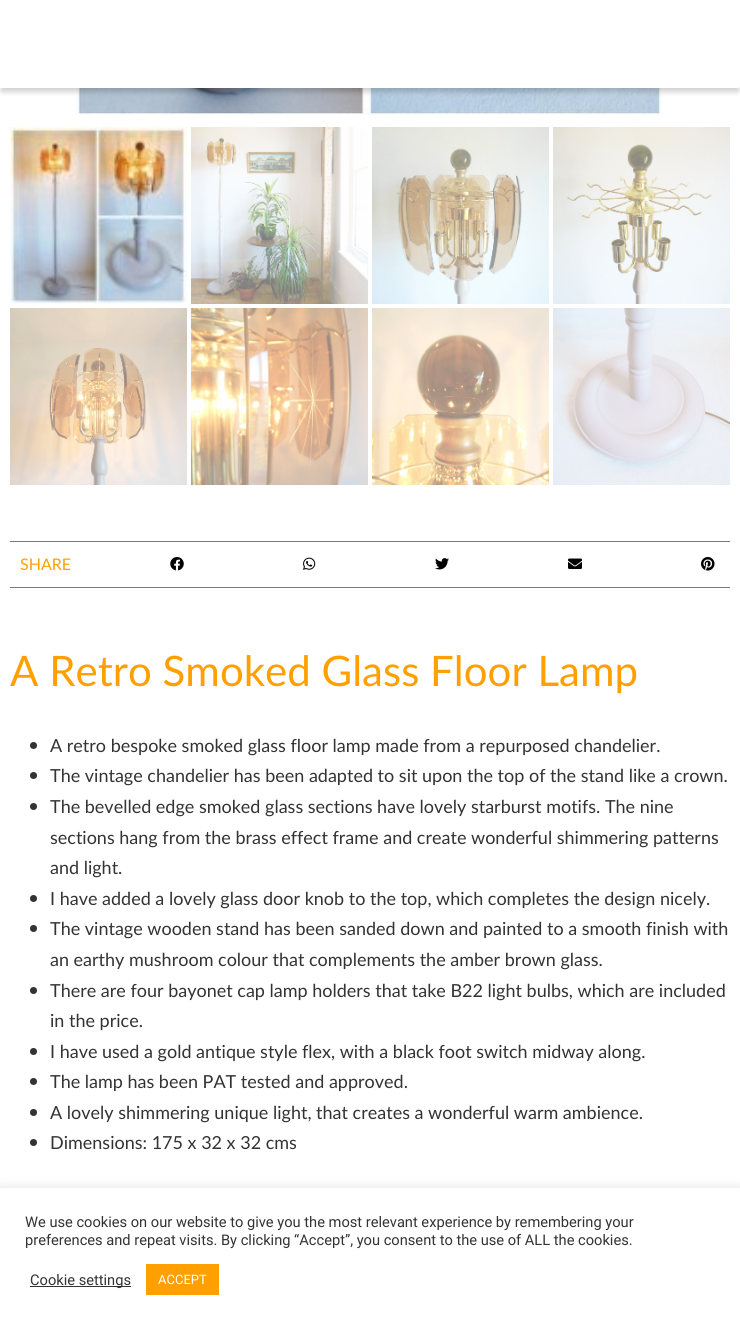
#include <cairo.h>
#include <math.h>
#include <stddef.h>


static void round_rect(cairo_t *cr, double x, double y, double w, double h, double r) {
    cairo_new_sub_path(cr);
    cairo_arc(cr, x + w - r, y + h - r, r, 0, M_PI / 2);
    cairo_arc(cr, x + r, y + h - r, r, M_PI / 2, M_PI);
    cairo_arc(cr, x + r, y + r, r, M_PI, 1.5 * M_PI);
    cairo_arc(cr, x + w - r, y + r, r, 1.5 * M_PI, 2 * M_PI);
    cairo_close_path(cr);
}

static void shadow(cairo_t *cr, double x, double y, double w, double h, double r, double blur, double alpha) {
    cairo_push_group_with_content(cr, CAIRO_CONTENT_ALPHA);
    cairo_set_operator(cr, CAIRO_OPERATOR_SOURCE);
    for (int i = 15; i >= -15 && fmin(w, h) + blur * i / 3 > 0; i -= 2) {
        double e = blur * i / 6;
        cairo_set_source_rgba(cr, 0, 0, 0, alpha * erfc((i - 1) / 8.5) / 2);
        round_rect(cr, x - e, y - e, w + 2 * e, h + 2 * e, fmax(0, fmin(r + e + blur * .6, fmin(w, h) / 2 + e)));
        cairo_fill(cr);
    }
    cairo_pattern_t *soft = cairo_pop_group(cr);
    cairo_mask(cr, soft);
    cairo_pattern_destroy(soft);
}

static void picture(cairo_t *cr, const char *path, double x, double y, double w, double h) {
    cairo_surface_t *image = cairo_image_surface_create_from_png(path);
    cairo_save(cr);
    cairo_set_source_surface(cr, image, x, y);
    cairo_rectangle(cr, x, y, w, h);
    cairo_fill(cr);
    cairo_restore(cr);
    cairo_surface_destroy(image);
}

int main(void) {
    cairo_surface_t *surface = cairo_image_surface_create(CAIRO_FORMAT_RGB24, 740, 1325);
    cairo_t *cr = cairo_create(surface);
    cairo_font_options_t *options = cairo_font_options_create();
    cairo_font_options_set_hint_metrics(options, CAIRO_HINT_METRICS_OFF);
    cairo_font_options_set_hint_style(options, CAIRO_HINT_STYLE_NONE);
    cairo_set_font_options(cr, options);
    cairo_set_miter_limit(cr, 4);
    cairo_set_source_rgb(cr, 1, 1, 1);
    cairo_paint(cr);
    picture(cr, "img1.png", 73, 88, 590, 27);
    cairo_set_source_rgb(cr, 0, 0, 0);
    shadow(cr, 1, 6, 738, 86, 1, 2.5, 0.18);
    cairo_set_source_rgb(cr, 1, 1, 1);
    cairo_new_path(cr);
    cairo_move_to(cr, 0, 0);
    cairo_line_to(cr, 740, 0);
    cairo_line_to(cr, 740, 86);
    cairo_curve_to(cr, 740, 87, 739, 88, 738, 88);
    cairo_line_to(cr, 0, 88);
    cairo_close_path(cr);
    cairo_fill(cr);
    picture(cr, "img2.png", 10, 127, 177, 177);
    picture(cr, "img3.png", 191, 127, 177, 177);
    picture(cr, "img4.png", 372, 127, 177, 177);
    picture(cr, "img5.png", 553, 127, 177, 177);
    picture(cr, "img6.png", 10, 308, 177, 177);
    picture(cr, "img7.png", 191, 308, 177, 177);
    picture(cr, "img8.png", 372, 308, 177, 177);
    picture(cr, "img9.png", 553, 308, 177, 177);
    cairo_set_source_rgb(cr, 0.478, 0.478, 0.478);
    cairo_rectangle(cr, 10, 541, 720, 1);
    cairo_fill(cr);
    cairo_rectangle(cr, 10, 587, 720, 1);
    cairo_fill(cr);
    cairo_select_font_face(cr, "Lato", CAIRO_FONT_SLANT_NORMAL, CAIRO_FONT_WEIGHT_NORMAL);
    cairo_set_font_size(cr, 16);
    cairo_set_source_rgb(cr, 1, 0.627, 0);
    cairo_move_to(cr, 20, 570);
    cairo_show_text(cr, "SHARE");
    picture(cr, "img10.png", 170, 557, 14, 14);
    picture(cr, "img11.png", 303, 557, 13, 13);
    picture(cr, "img12.png", 435, 558, 14, 12);
    picture(cr, "img13.png", 568, 558, 14, 11);
    picture(cr, "img14.png", 701, 557, 14, 14);
    cairo_set_font_size(cr, 42);
    cairo_move_to(cr, 10, 686);
    cairo_show_text(cr, "A Retro Smoked Glass Floor Lamp");
    cairo_set_source_rgb(cr, 0.2, 0.2, 0.2);
    cairo_new_path(cr);
    cairo_arc(cr, 33.5, 745.5, 3.5, 0, 2 * M_PI);
    cairo_fill(cr);
    cairo_set_font_size(cr, 18);
    cairo_move_to(cr, 50, 752);
    cairo_show_text(cr, "A retro bespoke smoked glass floor lamp made from a repurposed chandelier.");
    cairo_new_path(cr);
    cairo_arc(cr, 33.5, 775.5, 3.5, 0, 2 * M_PI);
    cairo_fill(cr);
    cairo_move_to(cr, 50, 782);
    cairo_show_text(cr, "The vintage chandelier has been adapted to sit upon the top of the stand like a crown.");
    cairo_new_path(cr);
    cairo_arc(cr, 33.5, 806.5, 3.5, 0, 2 * M_PI);
    cairo_fill(cr);
    cairo_move_to(cr, 50, 813);
    cairo_show_text(cr, "The bevelled edge smoked glass sections have lovely starburst motifs. The nine");
    cairo_move_to(cr, 50, 844);
    cairo_show_text(cr, "sections hang from the brass effect frame and create wonderful shimmering patterns");
    cairo_move_to(cr, 50, 874);
    cairo_show_text(cr, "and light.");
    cairo_new_path(cr);
    cairo_arc(cr, 33.5, 898.5, 3.5, 0, 2 * M_PI);
    cairo_fill(cr);
    cairo_move_to(cr, 50, 905);
    cairo_show_text(cr, "I have added a lovely glass door knob to the top, which completes the design nicely.");
    cairo_new_path(cr);
    cairo_arc(cr, 33.5, 928.5, 3.5, 0, 2 * M_PI);
    cairo_fill(cr);
    cairo_move_to(cr, 50, 935);
    cairo_show_text(cr, "The vintage wooden stand has been sanded down and painted to a smooth finish with");
    cairo_move_to(cr, 50, 966);
    cairo_show_text(cr, "an earthy mushroom colour that complements the amber brown glass.");
    cairo_new_path(cr);
    cairo_arc(cr, 33.5, 990.5, 3.5, 0, 2 * M_PI);
    cairo_fill(cr);
    cairo_move_to(cr, 50, 997);
    cairo_show_text(cr, "There are four bayonet cap lamp holders that take B22 light bulbs, which are included");
    cairo_move_to(cr, 50, 1027);
    cairo_show_text(cr, "in the price.");
    cairo_new_path(cr);
    cairo_arc(cr, 33.5, 1051.5, 3.5, 0, 2 * M_PI);
    cairo_fill(cr);
    cairo_move_to(cr, 50, 1058);
    cairo_show_text(cr, "I have used a gold antique style flex, with a black foot switch midway along.");
    cairo_new_path(cr);
    cairo_arc(cr, 33.5, 1081.5, 3.5, 0, 2 * M_PI);
    cairo_fill(cr);
    cairo_move_to(cr, 50, 1088);
    cairo_show_text(cr, "The lamp has been PAT tested and approved.");
    cairo_new_path(cr);
    cairo_arc(cr, 33.5, 1112.5, 3.5, 0, 2 * M_PI);
    cairo_fill(cr);
    cairo_move_to(cr, 50, 1119);
    cairo_show_text(cr, "A lovely shimmering unique light, that creates a wonderful warm ambience.");
    cairo_new_path(cr);
    cairo_arc(cr, 33.5, 1142.5, 3.5, 0, 2 * M_PI);
    cairo_fill(cr);
    cairo_move_to(cr, 50, 1149);
    cairo_show_text(cr, "Dimensions: 175 x 32 x 32 cms");
    cairo_set_source_rgb(cr, 0.675, 0.671, 0.671);
    shadow(cr, 0, 1187, 740, 137, 0, 5, 0.3);
    cairo_set_source_rgb(cr, 1, 1, 1);
    cairo_rectangle(cr, 0, 1188, 740, 137);
    cairo_fill(cr);
    cairo_select_font_face(cr, "Roboto", CAIRO_FONT_SLANT_NORMAL, CAIRO_FONT_WEIGHT_NORMAL);
    cairo_set_font_size(cr, 14.65);
    cairo_set_source_rgb(cr, 0.2, 0.2, 0.2);
    cairo_move_to(cr, 25, 1227);
    cairo_show_text(cr, "We use cookies on our website to give you the most relevant experience by remembering your");
    cairo_move_to(cr, 25, 1245);
    cairo_show_text(cr, "preferences and repeat visits. By clicking “Accept”, you consent to the use of ALL the cookies.");
    cairo_rectangle(cr, 30, 1286, 101, 1);
    cairo_fill(cr);
    cairo_move_to(cr, 30, 1285);
    cairo_show_text(cr, "Cookie settings");
    cairo_set_source_rgb(cr, 1, 0.624, 0);
    cairo_rectangle(cr, 146, 1264, 73, 31);
    cairo_fill(cr);
    cairo_set_font_size(cr, 13);
    cairo_set_source_rgb(cr, 1, 1, 1);
    cairo_move_to(cr, 158, 1284);
    cairo_show_text(cr, "ACCEPT");
    cairo_surface_write_to_png(surface, "page.png");
    cairo_font_options_destroy(options);
    cairo_destroy(cr);
    cairo_surface_destroy(surface);
    return 0;
}
